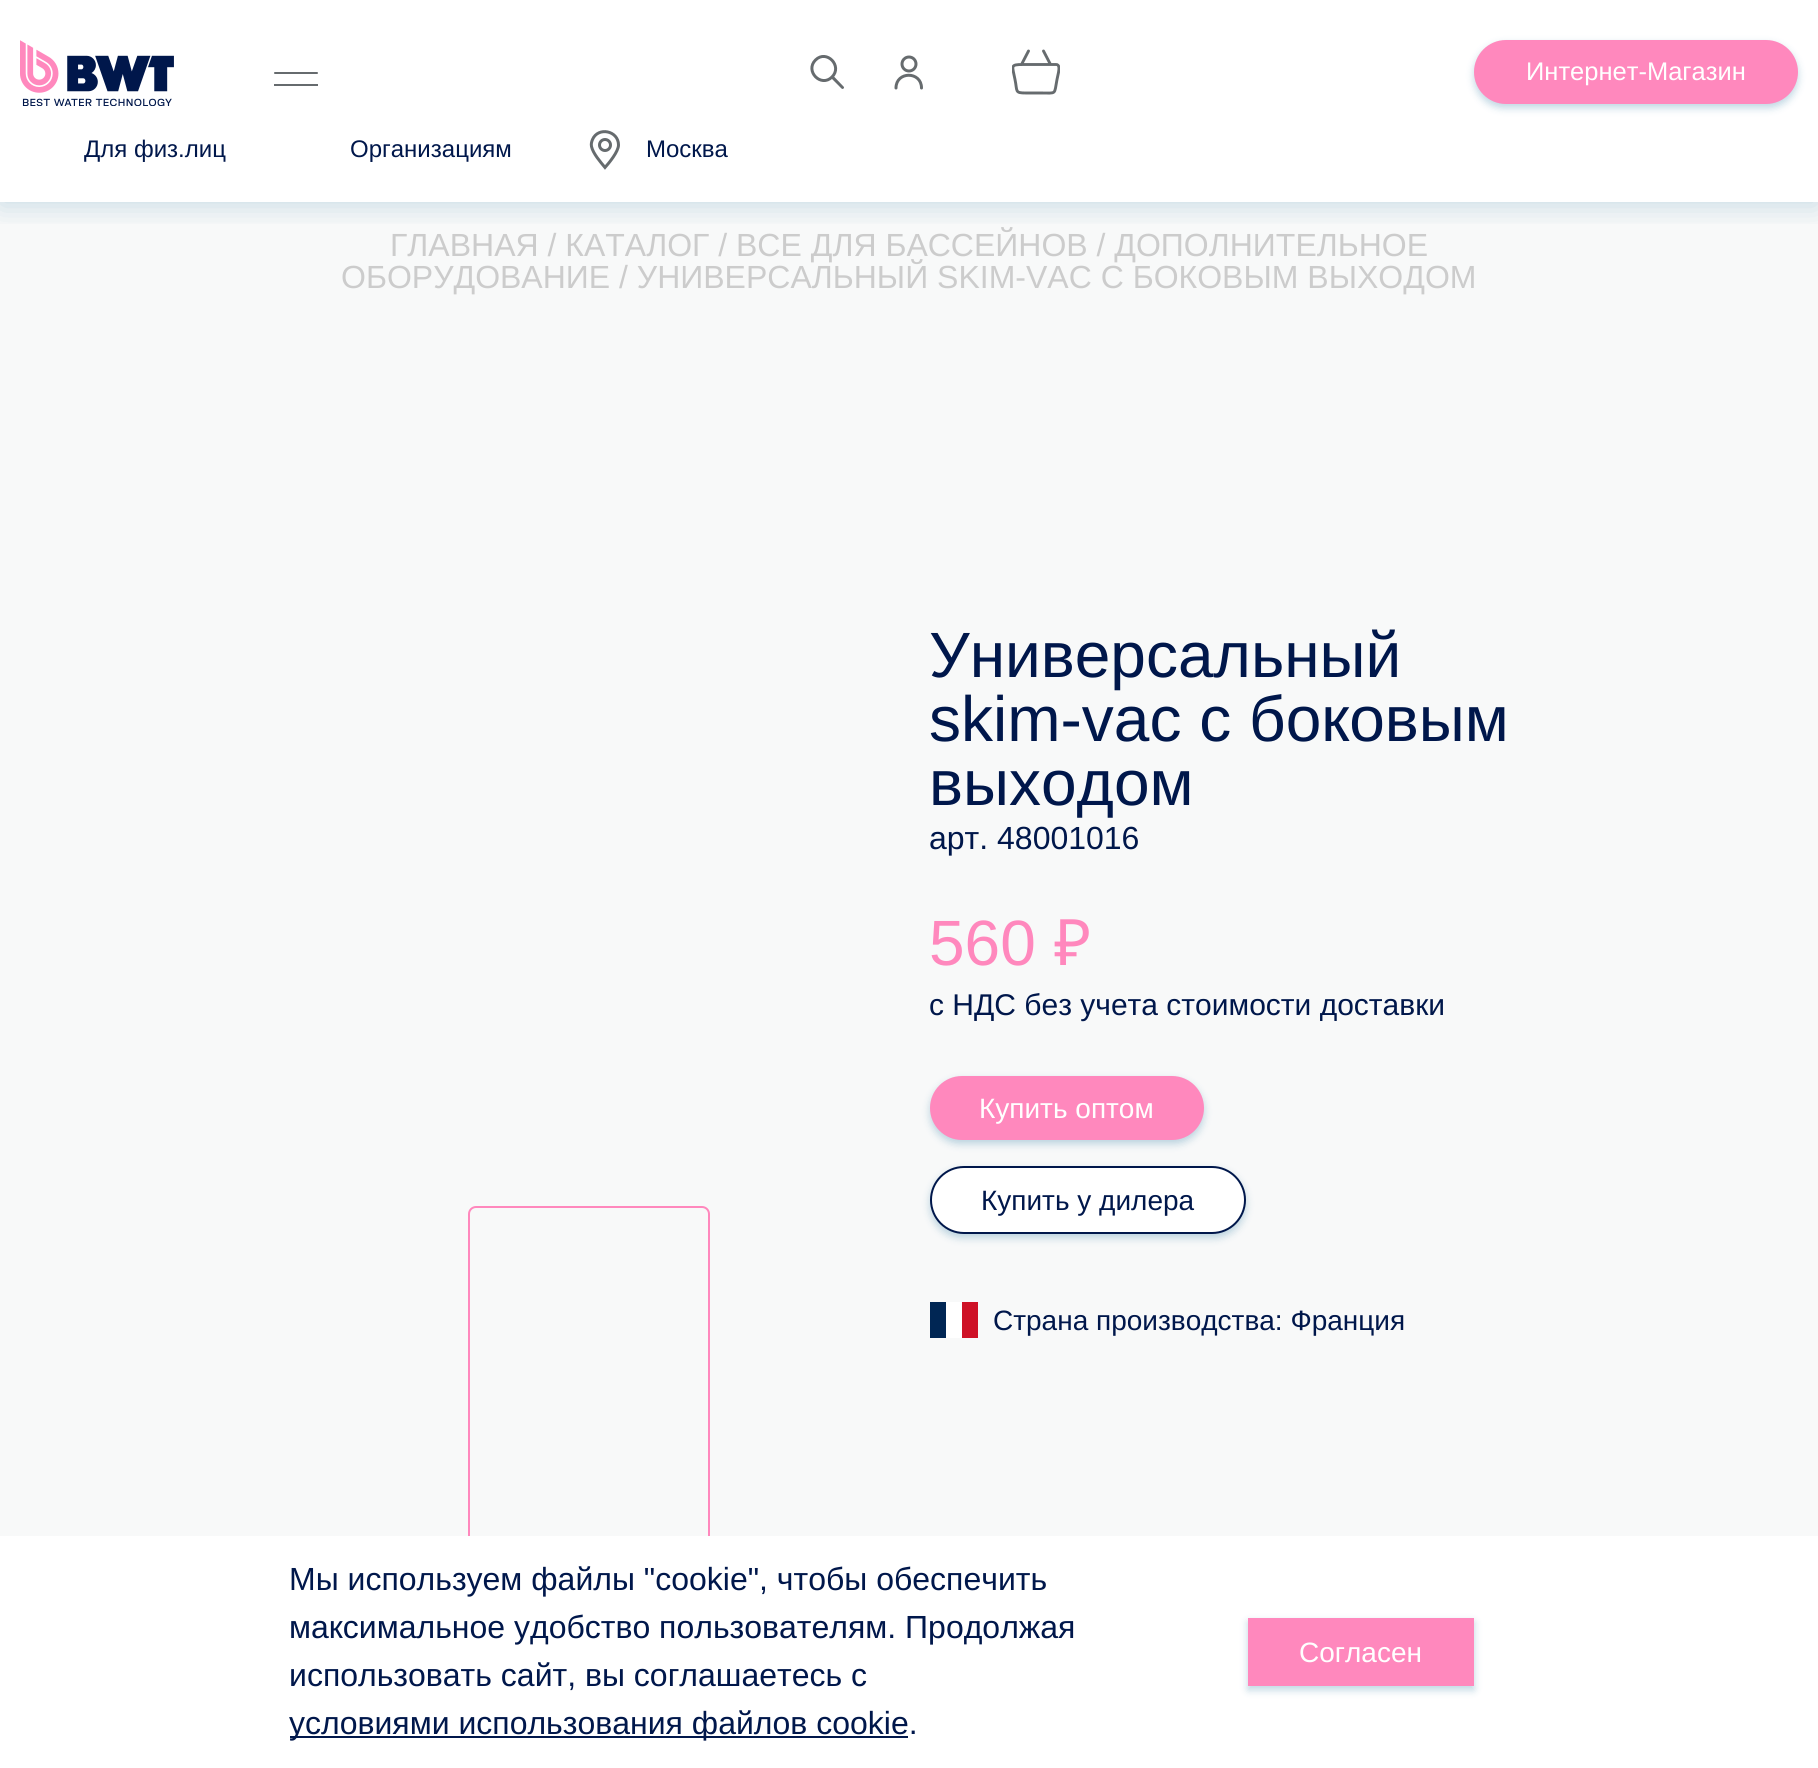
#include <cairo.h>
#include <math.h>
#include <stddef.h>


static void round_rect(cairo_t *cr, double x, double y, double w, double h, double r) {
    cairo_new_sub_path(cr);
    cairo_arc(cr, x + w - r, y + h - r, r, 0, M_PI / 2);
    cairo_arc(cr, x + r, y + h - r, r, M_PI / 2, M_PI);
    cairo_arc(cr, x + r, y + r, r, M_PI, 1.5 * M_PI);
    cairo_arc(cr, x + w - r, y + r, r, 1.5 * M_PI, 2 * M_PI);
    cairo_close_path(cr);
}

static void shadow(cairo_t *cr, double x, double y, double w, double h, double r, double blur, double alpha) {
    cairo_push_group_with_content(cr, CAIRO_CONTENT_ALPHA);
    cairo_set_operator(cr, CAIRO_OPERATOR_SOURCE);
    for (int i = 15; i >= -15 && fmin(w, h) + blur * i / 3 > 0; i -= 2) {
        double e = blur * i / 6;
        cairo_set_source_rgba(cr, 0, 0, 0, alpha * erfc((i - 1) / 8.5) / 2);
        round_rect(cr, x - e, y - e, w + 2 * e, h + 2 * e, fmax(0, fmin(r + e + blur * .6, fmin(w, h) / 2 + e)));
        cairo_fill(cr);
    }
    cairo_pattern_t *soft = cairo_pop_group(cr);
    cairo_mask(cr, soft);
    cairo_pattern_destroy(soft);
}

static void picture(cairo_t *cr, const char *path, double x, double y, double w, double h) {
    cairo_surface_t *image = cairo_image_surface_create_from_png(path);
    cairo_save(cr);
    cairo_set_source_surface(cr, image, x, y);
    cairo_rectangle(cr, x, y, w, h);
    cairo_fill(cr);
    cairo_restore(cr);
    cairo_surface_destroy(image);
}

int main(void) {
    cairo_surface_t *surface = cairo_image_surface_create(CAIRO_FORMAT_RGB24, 1818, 1768);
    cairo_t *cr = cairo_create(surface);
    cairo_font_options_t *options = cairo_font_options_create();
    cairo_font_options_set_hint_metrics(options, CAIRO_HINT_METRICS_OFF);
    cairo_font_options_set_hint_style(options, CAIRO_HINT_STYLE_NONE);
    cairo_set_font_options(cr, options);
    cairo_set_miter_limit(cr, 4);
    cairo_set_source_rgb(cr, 1, 1, 1);
    cairo_paint(cr);
    cairo_set_source_rgb(cr, 0.969, 0.973, 0.973);
    cairo_rectangle(cr, 0, 202, 1818, 1334);
    cairo_fill(cr);
    cairo_save(cr);
    cairo_rectangle(cr, 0, 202, 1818, 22);
    cairo_clip(cr);
    cairo_set_source_rgb(cr, 0, 0.365, 0.561);
    shadow(cr, 0, 4, 1818, 202, 0, 14, 0.2);
    cairo_restore(cr);
    picture(cr, "img1.png", 20, 40, 154, 66);
    cairo_set_source_rgb(cr, 0.4, 0.42, 0.431);
    round_rect(cr, 274, 72, 44, 2, 1);
    cairo_fill(cr);
    cairo_rectangle(cr, 274, 84, 44, 2);
    cairo_fill(cr);
    cairo_new_path(cr);
    cairo_move_to(cr, 815.5, 60);
    cairo_curve_to(cr, 826.5, 49, 843, 66, 832, 77);
    cairo_curve_to(cr, 821, 88, 804.5, 71, 815.5, 60);
    cairo_close_path(cr);
    cairo_set_line_width(cr, 3);
    cairo_stroke(cr);
    cairo_new_path(cr);
    cairo_move_to(cr, 841.5, 88.5);
    cairo_curve_to(cr, 843, 90, 845, 87.5, 843.5, 86.5);
    cairo_close_path(cr);
    cairo_move_to(cr, 830.5, 77.5);
    cairo_line_to(cr, 841.5, 88.5);
    cairo_line_to(cr, 843.5, 86.5);
    cairo_line_to(cr, 833, 75.5);
    cairo_close_path(cr);
    cairo_fill(cr);
    cairo_arc(cr, 909, 64, 7, 0, 2 * M_PI);
    cairo_stroke(cr);
    cairo_new_path(cr);
    cairo_move_to(cr, 921.5, 88);
    cairo_curve_to(cr, 921.5, 71, 896, 71, 896, 88);
    cairo_set_line_cap(cr, CAIRO_LINE_CAP_ROUND);
    cairo_stroke(cr);
    cairo_save(cr);
    cairo_rectangle(cr, 1012, 48, 48, 48);
    cairo_clip(cr);
    cairo_new_path(cr);
    cairo_move_to(cr, 1043.5, 51);
    cairo_line_to(cr, 1050.5, 64.5);
    cairo_move_to(cr, 1021.5, 64.5);
    cairo_line_to(cr, 1028.5, 51);
    cairo_move_to(cr, 1055.5, 64.5);
    cairo_line_to(cr, 1023, 64.5);
    cairo_curve_to(cr, 1009.5, 64.5, 1012.5, 66, 1015, 79.5);
    cairo_curve_to(cr, 1017.5, 91.5, 1014.5, 93, 1026, 93);
    cairo_line_to(cr, 1041, 93);
    cairo_curve_to(cr, 1057, 93, 1054, 95, 1057, 79.5);
    cairo_line_to(cr, 1058.5, 72.5);
    cairo_curve_to(cr, 1059, 69.5, 1060, 64, 1055.5, 64.5);
    cairo_close_path(cr);
    cairo_set_line_width(cr, 2.9);
    cairo_set_line_join(cr, CAIRO_LINE_JOIN_ROUND);
    cairo_stroke(cr);
    cairo_restore(cr);
    cairo_set_source_rgb(cr, 0, 0.365, 0.561);
    shadow(cr, 1474, 44, 324, 64, 32, 4, 0.25);
    cairo_set_source_rgb(cr, 1, 0.533, 0.741);
    round_rect(cr, 1474, 40, 324, 64, 32);
    cairo_fill(cr);
    cairo_select_font_face(cr, "Liberation Sans", CAIRO_FONT_SLANT_NORMAL, CAIRO_FONT_WEIGHT_NORMAL);
    cairo_set_font_size(cr, 25.5);
    cairo_set_source_rgb(cr, 1, 1, 1);
    cairo_move_to(cr, 1526, 80);
    cairo_show_text(cr, "Интернет-Магазин");
    cairo_set_font_size(cr, 24);
    cairo_set_source_rgb(cr, 0, 0.09, 0.294);
    cairo_move_to(cr, 84, 157);
    cairo_show_text(cr, "Для физ.лиц");
    cairo_move_to(cr, 350, 157);
    cairo_show_text(cr, "Организациям");
    cairo_new_path(cr);
    cairo_move_to(cr, 618.5, 145);
    cairo_curve_to(cr, 618.5, 151.5, 609, 163, 605, 167.5);
    cairo_curve_to(cr, 600.5, 162, 593, 153.5, 591.5, 146.5);
    cairo_curve_to(cr, 591, 144, 591.5, 142, 592.5, 139.5);
    cairo_curve_to(cr, 598, 126.5, 618.5, 130.5, 618.5, 145);
    cairo_close_path(cr);
    cairo_set_source_rgb(cr, 0.4, 0.42, 0.431);
    cairo_set_line_cap(cr, CAIRO_LINE_CAP_BUTT);
    cairo_stroke(cr);
    cairo_arc(cr, 605, 145, 5.5, 0, 2 * M_PI);
    cairo_stroke(cr);
    cairo_set_source_rgb(cr, 0, 0.09, 0.294);
    cairo_move_to(cr, 646, 157);
    cairo_show_text(cr, "Москва");
    cairo_set_font_size(cr, 32);
    cairo_set_source_rgb(cr, 0.8, 0.8, 0.8);
    cairo_move_to(cr, 390, 256);
    cairo_show_text(cr, "ГЛАВНАЯ / КАТАЛОГ / ВСЕ ДЛЯ БАССЕЙНОВ / ДОПОЛНИТЕЛЬНОЕ");
    cairo_move_to(cr, 341, 288);
    cairo_show_text(cr, "ОБОРУДОВАНИЕ / УНИВЕРСАЛЬНЫЙ SKIM-VAC С БОКОВЫМ ВЫХОДОМ");
    cairo_set_font_size(cr, 64);
    cairo_set_source_rgb(cr, 0, 0.09, 0.294);
    cairo_move_to(cr, 929, 677);
    cairo_show_text(cr, "Универсальный");
    cairo_move_to(cr, 929, 741);
    cairo_show_text(cr, "skim-vac с боковым");
    cairo_move_to(cr, 929, 805);
    cairo_show_text(cr, "выходом");
    cairo_set_font_size(cr, 32);
    cairo_move_to(cr, 929, 849);
    cairo_show_text(cr, "арт. 48001016");
    cairo_set_font_size(cr, 64);
    cairo_set_source_rgb(cr, 1, 0.533, 0.741);
    cairo_move_to(cr, 929, 965);
    cairo_show_text(cr, "560");
    cairo_select_font_face(cr, "Noto Sans", CAIRO_FONT_SLANT_NORMAL, CAIRO_FONT_WEIGHT_NORMAL);
    cairo_move_to(cr, 1054, 965);
    cairo_show_text(cr, "₽");
    cairo_select_font_face(cr, "Liberation Sans", CAIRO_FONT_SLANT_NORMAL, CAIRO_FONT_WEIGHT_NORMAL);
    cairo_set_font_size(cr, 30);
    cairo_set_source_rgb(cr, 0, 0.09, 0.294);
    cairo_move_to(cr, 929, 1015);
    cairo_show_text(cr, "с НДС без учета стоимости доставки");
    cairo_set_source_rgb(cr, 0, 0.365, 0.561);
    shadow(cr, 930, 1080, 274, 64, 32, 4, 0.25);
    cairo_set_source_rgb(cr, 1, 0.533, 0.741);
    round_rect(cr, 930, 1076, 274, 64, 32);
    cairo_fill(cr);
    cairo_set_font_size(cr, 28);
    cairo_set_source_rgb(cr, 1, 1, 1);
    cairo_move_to(cr, 979, 1118);
    cairo_show_text(cr, "Купить оптом");
    cairo_set_source_rgb(cr, 0, 0.365, 0.561);
    shadow(cr, 930, 1170, 316, 68, 34, 4, 0.25);
    cairo_set_source_rgb(cr, 1, 1, 1);
    round_rect(cr, 931, 1167, 314, 66, 33);
    cairo_fill_preserve(cr);
    cairo_set_source_rgb(cr, 0, 0.09, 0.294);
    cairo_set_line_width(cr, 2);
    cairo_stroke(cr);
    cairo_move_to(cr, 981, 1210);
    cairo_show_text(cr, "Купить у дилера");
    cairo_set_source_rgb(cr, 1, 1, 1);
    cairo_rectangle(cr, 946, 1302, 16, 36);
    cairo_fill(cr);
    cairo_set_source_rgb(cr, 0, 0.149, 0.329);
    cairo_rectangle(cr, 930, 1302, 16, 36);
    cairo_fill(cr);
    cairo_set_source_rgb(cr, 0.808, 0.067, 0.149);
    cairo_rectangle(cr, 962, 1302, 16, 36);
    cairo_fill(cr);
    cairo_set_source_rgb(cr, 0, 0.09, 0.294);
    cairo_move_to(cr, 993, 1330);
    cairo_show_text(cr, "Страна производства: Франция");
    round_rect(cr, 469, 1207, 240, 434, 7);
    cairo_set_source_rgb(cr, 1, 0.533, 0.741);
    cairo_stroke(cr);
    cairo_set_source_rgb(cr, 1, 1, 1);
    cairo_rectangle(cr, 468, 1536, 242, 106);
    cairo_fill(cr);
    cairo_set_font_size(cr, 32);
    cairo_set_source_rgb(cr, 0, 0.09, 0.294);
    cairo_move_to(cr, 289, 1590);
    cairo_show_text(cr, "Мы используем файлы \"cookie\", чтобы обеспечить");
    cairo_move_to(cr, 289, 1638);
    cairo_show_text(cr, "максимальное удобство пользователям. Продолжая");
    cairo_move_to(cr, 289, 1686);
    cairo_show_text(cr, "использовать сайт, вы соглашаетесь с");
    cairo_rectangle(cr, 290, 1736, 618, 2);
    cairo_fill(cr);
    cairo_move_to(cr, 289, 1734);
    cairo_show_text(cr, "условиями использования файлов cookie.");
    cairo_set_source_rgb(cr, 0, 0.365, 0.561);
    shadow(cr, 1248, 1622, 226, 68, 0, 4, 0.25);
    cairo_set_source_rgb(cr, 1, 0.533, 0.741);
    cairo_rectangle(cr, 1248, 1618, 226, 68);
    cairo_fill(cr);
    cairo_set_font_size(cr, 28);
    cairo_set_source_rgb(cr, 1, 1, 1);
    cairo_move_to(cr, 1299, 1662);
    cairo_show_text(cr, "Согласен");
    cairo_surface_write_to_png(surface, "page.png");
    cairo_font_options_destroy(options);
    cairo_destroy(cr);
    cairo_surface_destroy(surface);
    return 0;
}
